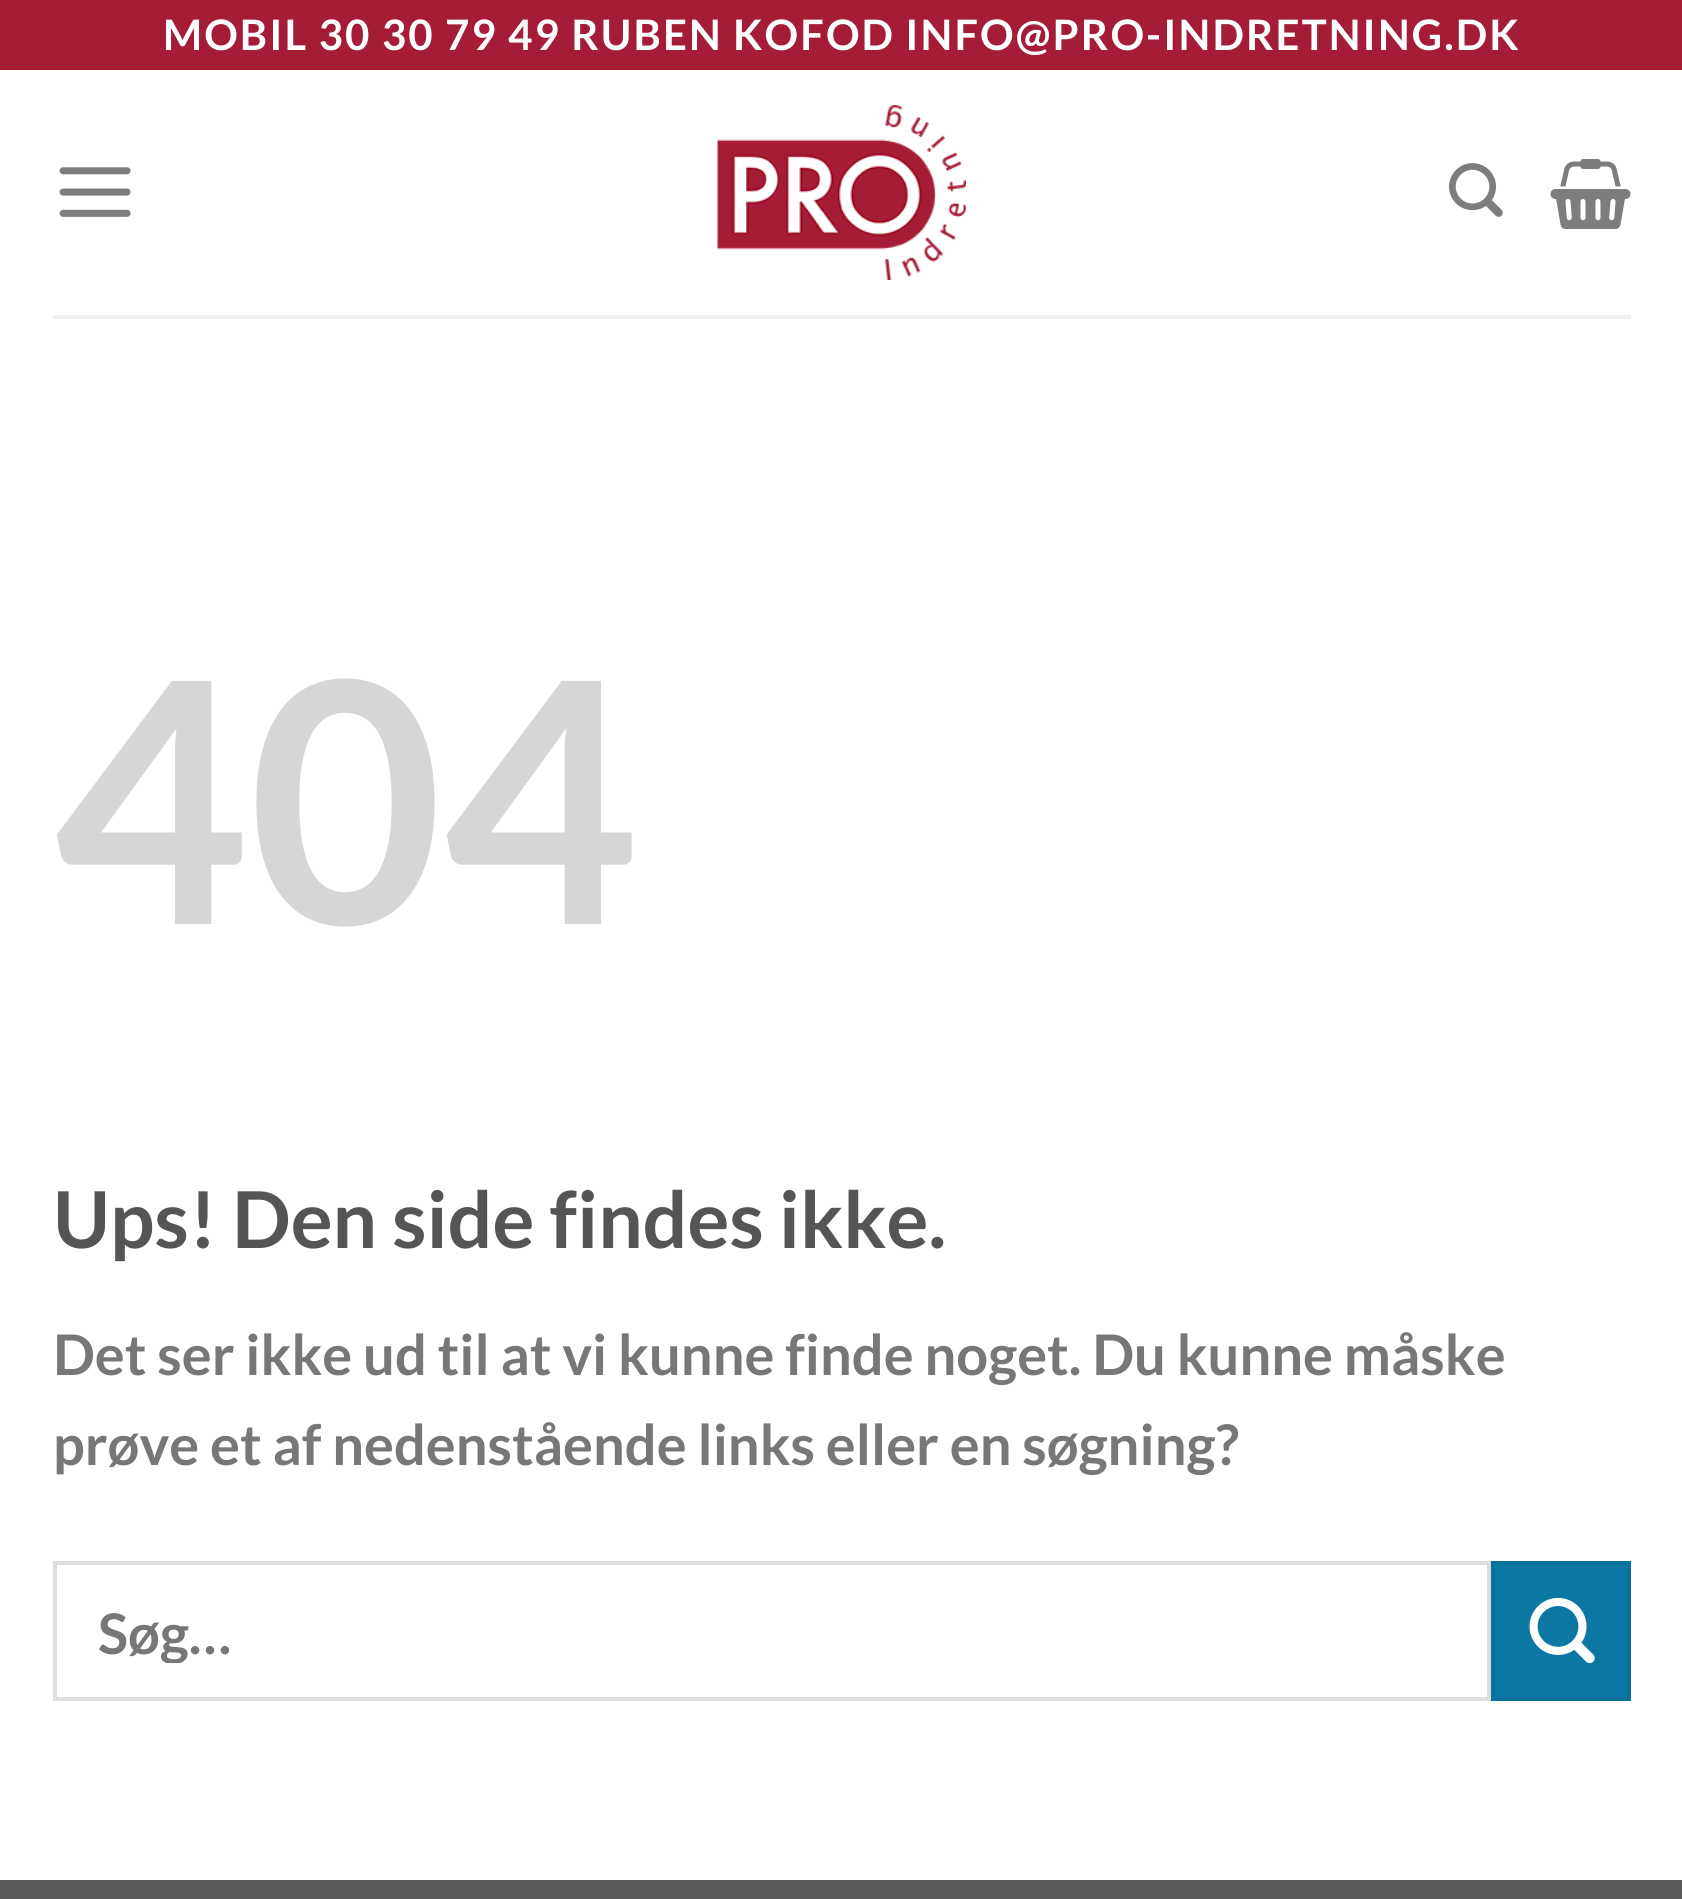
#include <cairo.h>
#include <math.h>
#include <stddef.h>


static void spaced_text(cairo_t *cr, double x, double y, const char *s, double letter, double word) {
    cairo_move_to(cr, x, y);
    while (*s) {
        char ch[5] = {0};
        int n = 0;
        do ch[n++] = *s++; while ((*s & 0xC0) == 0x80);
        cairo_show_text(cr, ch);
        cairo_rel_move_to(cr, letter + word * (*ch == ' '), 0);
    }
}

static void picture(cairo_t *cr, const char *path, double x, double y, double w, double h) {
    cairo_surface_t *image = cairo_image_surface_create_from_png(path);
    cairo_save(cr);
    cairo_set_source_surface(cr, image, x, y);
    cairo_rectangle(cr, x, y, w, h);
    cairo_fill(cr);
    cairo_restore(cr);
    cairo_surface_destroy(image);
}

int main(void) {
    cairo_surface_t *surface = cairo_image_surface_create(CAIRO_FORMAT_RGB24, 1682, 1899);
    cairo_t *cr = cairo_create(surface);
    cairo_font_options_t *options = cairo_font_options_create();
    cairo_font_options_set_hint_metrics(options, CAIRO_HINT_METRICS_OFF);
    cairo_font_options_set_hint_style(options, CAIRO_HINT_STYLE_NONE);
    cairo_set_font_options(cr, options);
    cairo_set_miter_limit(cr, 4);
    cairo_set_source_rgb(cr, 1, 1, 1);
    cairo_paint(cr);
    cairo_set_source_rgb(cr, 0.643, 0.11, 0.208);
    cairo_rectangle(cr, 0, 0, 1682, 70);
    cairo_fill(cr);
    cairo_select_font_face(cr, "Lato", CAIRO_FONT_SLANT_NORMAL, CAIRO_FONT_WEIGHT_BOLD);
    cairo_set_font_size(cr, 42);
    cairo_set_source_rgb(cr, 1, 1, 1);
    spaced_text(cr, 163, 50, "MOBIL 30 30 79 49 RUBEN KOFOD INFO@PRO-INDRETNING.DK", 2.1, 0);
    picture(cr, "img1.png", 59, 167, 72, 50);
    picture(cr, "img2.png", 717, 105, 249, 175);
    picture(cr, "img3.png", 1449, 163, 54, 54);
    picture(cr, "img4.png", 1550, 159, 81, 70);
    cairo_set_source_rgb(cr, 0.945, 0.945, 0.945);
    cairo_rectangle(cr, 53, 315, 1578, 4);
    cairo_fill(cr);
    cairo_set_font_size(cr, 336);
    cairo_set_source_rgb(cr, 0.839, 0.839, 0.839);
    cairo_move_to(cr, 53, 924);
    cairo_show_text(cr, "404");
    cairo_set_font_size(cr, 78.4);
    cairo_set_source_rgb(cr, 0.333, 0.333, 0.333);
    cairo_move_to(cr, 53, 1248);
    cairo_show_text(cr, "Ups! Den side findes ikke.");
    cairo_set_font_size(cr, 56);
    cairo_set_source_rgb(cr, 0.467, 0.467, 0.467);
    cairo_move_to(cr, 53, 1375);
    cairo_show_text(cr, "Det ser ikke ud til at vi kunne finde noget. Du kunne måske");
    cairo_move_to(cr, 53, 1465);
    cairo_show_text(cr, "prøve et af nedenstående links eller en søgning?");
    cairo_rectangle(cr, 55, 1563, 1434, 136);
    cairo_set_source_rgb(cr, 0.867, 0.867, 0.867);
    cairo_set_line_width(cr, 4);
    cairo_stroke(cr);
    cairo_save(cr);
    cairo_rectangle(cr, 98, 1596, 1334, 67);
    cairo_clip(cr);
    cairo_set_source_rgb(cr, 0.467, 0.467, 0.467);
    cairo_move_to(cr, 98, 1654);
    cairo_show_text(cr, "Søg…");
    cairo_restore(cr);
    cairo_set_source_rgb(cr, 0.043, 0.467, 0.639);
    cairo_rectangle(cr, 1493, 1563, 136, 136);
    cairo_fill_preserve(cr);
    cairo_set_source_rgb(cr, 0.039, 0.443, 0.608);
    cairo_stroke(cr);
    picture(cr, "img5.png", 1529, 1597, 66, 67);
    cairo_set_source_rgb(cr, 0.357, 0.357, 0.357);
    cairo_rectangle(cr, 0, 1880, 1682, 19);
    cairo_fill(cr);
    cairo_surface_write_to_png(surface, "page.png");
    cairo_font_options_destroy(options);
    cairo_destroy(cr);
    cairo_surface_destroy(surface);
    return 0;
}
